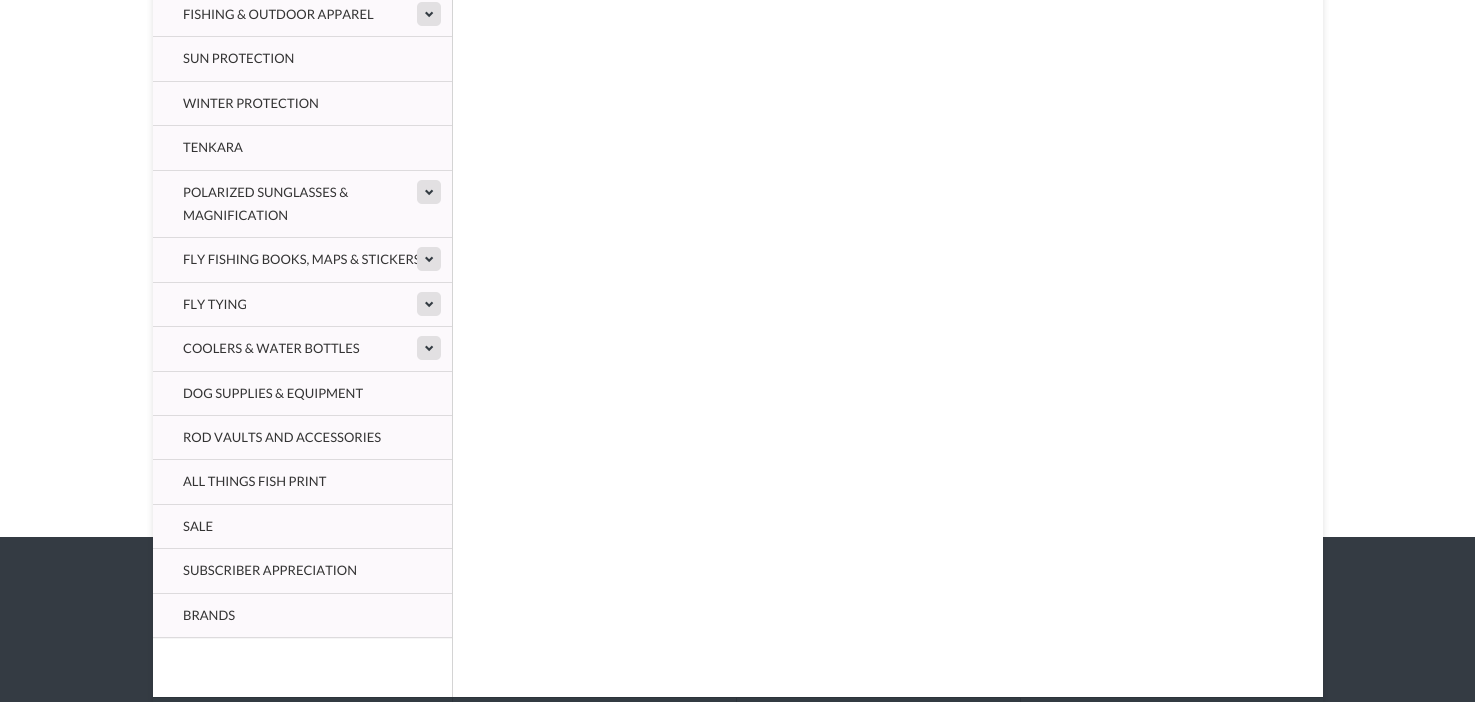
#include <cairo.h>
#include <math.h>
#include <stddef.h>


static void round_rect(cairo_t *cr, double x, double y, double w, double h, double r) {
    cairo_new_sub_path(cr);
    cairo_arc(cr, x + w - r, y + h - r, r, 0, M_PI / 2);
    cairo_arc(cr, x + r, y + h - r, r, M_PI / 2, M_PI);
    cairo_arc(cr, x + r, y + r, r, M_PI, 1.5 * M_PI);
    cairo_arc(cr, x + w - r, y + r, r, 1.5 * M_PI, 2 * M_PI);
    cairo_close_path(cr);
}

static void shadow(cairo_t *cr, double x, double y, double w, double h, double r, double blur, double alpha) {
    cairo_push_group_with_content(cr, CAIRO_CONTENT_ALPHA);
    cairo_set_operator(cr, CAIRO_OPERATOR_SOURCE);
    for (int i = 15; i >= -15 && fmin(w, h) + blur * i / 3 > 0; i -= 2) {
        double e = blur * i / 6;
        cairo_set_source_rgba(cr, 0, 0, 0, alpha * erfc((i - 1) / 8.5) / 2);
        round_rect(cr, x - e, y - e, w + 2 * e, h + 2 * e, fmax(0, fmin(r + e + blur * .6, fmin(w, h) / 2 + e)));
        cairo_fill(cr);
    }
    cairo_pattern_t *soft = cairo_pop_group(cr);
    cairo_mask(cr, soft);
    cairo_pattern_destroy(soft);
}

static void picture(cairo_t *cr, const char *path, double x, double y, double w, double h) {
    cairo_surface_t *image = cairo_image_surface_create_from_png(path);
    cairo_save(cr);
    cairo_set_source_surface(cr, image, x, y);
    cairo_rectangle(cr, x, y, w, h);
    cairo_fill(cr);
    cairo_restore(cr);
    cairo_surface_destroy(image);
}

int main(void) {
    cairo_surface_t *surface = cairo_image_surface_create(CAIRO_FORMAT_RGB24, 1475, 702);
    cairo_t *cr = cairo_create(surface);
    cairo_font_options_t *options = cairo_font_options_create();
    cairo_font_options_set_hint_metrics(options, CAIRO_HINT_METRICS_OFF);
    cairo_font_options_set_hint_style(options, CAIRO_HINT_STYLE_NONE);
    cairo_set_font_options(cr, options);
    cairo_set_miter_limit(cr, 4);
    cairo_set_source_rgb(cr, 1, 1, 1);
    cairo_paint(cr);
    cairo_set_source_rgb(cr, 0.204, 0.231, 0.263);
    cairo_rectangle(cr, 0, 537, 1475, 165);
    cairo_fill(cr);
    cairo_set_source_rgb(cr, 0, 0, 0);
    shadow(cr, 153, -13, 1170, 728, 2, 3.5, 0.13);
    cairo_set_source_rgb(cr, 1, 1, 1);
    cairo_rectangle(cr, 153, 0, 1170, 697);
    cairo_fill(cr);
    cairo_set_source_rgb(cr, 0.831, 0.831, 0.831);
    cairo_rectangle(cr, 452, 0, 1, 697);
    cairo_fill(cr);
    cairo_set_source_rgb(cr, 0.988, 0.976, 0.988);
    cairo_rectangle(cr, 153, 0, 299, 36);
    cairo_fill(cr);
    cairo_select_font_face(cr, "Lato", CAIRO_FONT_SLANT_NORMAL, CAIRO_FONT_WEIGHT_NORMAL);
    cairo_set_font_size(cr, 13);
    cairo_set_source_rgb(cr, 0.2, 0.2, 0.2);
    cairo_move_to(cr, 183, 19);
    cairo_show_text(cr, "FISHING & OUTDOOR APPAREL");
    cairo_set_source_rgb(cr, 0.886, 0.878, 0.886);
    round_rect(cr, 417, 2, 24, 24, 5);
    cairo_fill(cr);
    picture(cr, "img1.png", 425, 11, 9, 7);
    cairo_set_source_rgb(cr, 0.988, 0.976, 0.988);
    cairo_rectangle(cr, 153, 37, 299, 44);
    cairo_fill(cr);
    cairo_set_source_rgb(cr, 0.867, 0.859, 0.867);
    cairo_rectangle(cr, 153, 36, 299, 1);
    cairo_fill(cr);
    cairo_set_source_rgb(cr, 0.2, 0.2, 0.2);
    cairo_move_to(cr, 183, 63);
    cairo_show_text(cr, "SUN PROTECTION");
    cairo_set_source_rgb(cr, 0.988, 0.976, 0.988);
    cairo_rectangle(cr, 153, 82, 299, 43);
    cairo_fill(cr);
    cairo_set_source_rgb(cr, 0.867, 0.859, 0.867);
    cairo_rectangle(cr, 153, 81, 299, 1);
    cairo_fill(cr);
    cairo_set_source_rgb(cr, 0.2, 0.2, 0.2);
    cairo_move_to(cr, 183, 108);
    cairo_show_text(cr, "WINTER PROTECTION");
    cairo_set_source_rgb(cr, 0.988, 0.976, 0.988);
    cairo_rectangle(cr, 153, 126, 299, 44);
    cairo_fill(cr);
    cairo_set_source_rgb(cr, 0.867, 0.859, 0.867);
    cairo_rectangle(cr, 153, 125, 299, 1);
    cairo_fill(cr);
    cairo_set_source_rgb(cr, 0.2, 0.2, 0.2);
    cairo_move_to(cr, 183, 152);
    cairo_show_text(cr, "TENKARA");
    cairo_set_source_rgb(cr, 0.988, 0.976, 0.988);
    cairo_rectangle(cr, 153, 171, 299, 66);
    cairo_fill(cr);
    cairo_set_source_rgb(cr, 0.867, 0.859, 0.867);
    cairo_rectangle(cr, 153, 170, 299, 1);
    cairo_fill(cr);
    cairo_set_source_rgb(cr, 0.2, 0.2, 0.2);
    cairo_move_to(cr, 183, 197);
    cairo_show_text(cr, "POLARIZED SUNGLASSES &");
    cairo_move_to(cr, 183, 220);
    cairo_show_text(cr, "MAGNIFICATION");
    cairo_set_source_rgb(cr, 0.886, 0.878, 0.886);
    round_rect(cr, 417, 180, 24, 24, 5);
    cairo_fill(cr);
    picture(cr, "img1.png", 425, 189, 9, 7);
    cairo_set_source_rgb(cr, 0.988, 0.976, 0.988);
    cairo_rectangle(cr, 153, 238, 299, 44);
    cairo_fill(cr);
    cairo_set_source_rgb(cr, 0.867, 0.859, 0.867);
    cairo_rectangle(cr, 153, 237, 299, 1);
    cairo_fill(cr);
    cairo_set_source_rgb(cr, 0.2, 0.2, 0.2);
    cairo_move_to(cr, 183, 264);
    cairo_show_text(cr, "FLY FISHING BOOKS, MAPS & STICKERS");
    cairo_set_source_rgb(cr, 0.886, 0.878, 0.886);
    round_rect(cr, 417, 247, 24, 24, 5);
    cairo_fill(cr);
    picture(cr, "img1.png", 425, 256, 9, 7);
    cairo_set_source_rgb(cr, 0.988, 0.976, 0.988);
    cairo_rectangle(cr, 153, 283, 299, 43);
    cairo_fill(cr);
    cairo_set_source_rgb(cr, 0.867, 0.859, 0.867);
    cairo_rectangle(cr, 153, 282, 299, 1);
    cairo_fill(cr);
    cairo_set_source_rgb(cr, 0.2, 0.2, 0.2);
    cairo_move_to(cr, 183, 309);
    cairo_show_text(cr, "FLY TYING");
    cairo_set_source_rgb(cr, 0.886, 0.878, 0.886);
    round_rect(cr, 417, 292, 24, 24, 5);
    cairo_fill(cr);
    picture(cr, "img1.png", 425, 301, 9, 7);
    cairo_set_source_rgb(cr, 0.988, 0.976, 0.988);
    cairo_rectangle(cr, 153, 327, 299, 44);
    cairo_fill(cr);
    cairo_set_source_rgb(cr, 0.867, 0.859, 0.867);
    cairo_rectangle(cr, 153, 326, 299, 1);
    cairo_fill(cr);
    cairo_set_source_rgb(cr, 0.2, 0.2, 0.2);
    cairo_move_to(cr, 183, 353);
    cairo_show_text(cr, "COOLERS & WATER BOTTLES");
    cairo_set_source_rgb(cr, 0.886, 0.878, 0.886);
    round_rect(cr, 417, 336, 24, 24, 5);
    cairo_fill(cr);
    picture(cr, "img1.png", 425, 345, 9, 7);
    cairo_set_source_rgb(cr, 0.988, 0.976, 0.988);
    cairo_rectangle(cr, 153, 372, 299, 43);
    cairo_fill(cr);
    cairo_set_source_rgb(cr, 0.867, 0.859, 0.867);
    cairo_rectangle(cr, 153, 371, 299, 1);
    cairo_fill(cr);
    cairo_set_source_rgb(cr, 0.2, 0.2, 0.2);
    cairo_move_to(cr, 183, 398);
    cairo_show_text(cr, "DOG SUPPLIES & EQUIPMENT");
    cairo_set_source_rgb(cr, 0.988, 0.976, 0.988);
    cairo_rectangle(cr, 153, 416, 299, 43);
    cairo_fill(cr);
    cairo_set_source_rgb(cr, 0.867, 0.859, 0.867);
    cairo_rectangle(cr, 153, 415, 299, 1);
    cairo_fill(cr);
    cairo_set_source_rgb(cr, 0.2, 0.2, 0.2);
    cairo_move_to(cr, 183, 442);
    cairo_show_text(cr, "ROD VAULTS AND ACCESSORIES");
    cairo_set_source_rgb(cr, 0.988, 0.976, 0.988);
    cairo_rectangle(cr, 153, 460, 299, 44);
    cairo_fill(cr);
    cairo_set_source_rgb(cr, 0.867, 0.859, 0.867);
    cairo_rectangle(cr, 153, 459, 299, 1);
    cairo_fill(cr);
    cairo_set_source_rgb(cr, 0.2, 0.2, 0.2);
    cairo_move_to(cr, 183, 486);
    cairo_show_text(cr, "ALL THINGS FISH PRINT");
    cairo_set_source_rgb(cr, 0.988, 0.976, 0.988);
    cairo_rectangle(cr, 153, 505, 299, 43);
    cairo_fill(cr);
    cairo_set_source_rgb(cr, 0.867, 0.859, 0.867);
    cairo_rectangle(cr, 153, 504, 299, 1);
    cairo_fill(cr);
    cairo_set_source_rgb(cr, 0.2, 0.2, 0.2);
    cairo_move_to(cr, 183, 531);
    cairo_show_text(cr, "SALE");
    cairo_set_source_rgb(cr, 0.988, 0.976, 0.988);
    cairo_rectangle(cr, 153, 549, 299, 44);
    cairo_fill(cr);
    cairo_set_source_rgb(cr, 0.867, 0.859, 0.867);
    cairo_rectangle(cr, 153, 548, 299, 1);
    cairo_fill(cr);
    cairo_set_source_rgb(cr, 0.2, 0.2, 0.2);
    cairo_move_to(cr, 183, 575);
    cairo_show_text(cr, "SUBSCRIBER APPRECIATION");
    cairo_set_source_rgb(cr, 0.961, 0.961, 0.961);
    cairo_rectangle(cr, 153, 638, 299, 1);
    cairo_fill(cr);
    cairo_set_source_rgb(cr, 0.988, 0.976, 0.988);
    cairo_rectangle(cr, 153, 594, 299, 43);
    cairo_fill(cr);
    cairo_set_source_rgb(cr, 0.867, 0.859, 0.867);
    cairo_rectangle(cr, 153, 593, 299, 1);
    cairo_fill(cr);
    cairo_rectangle(cr, 153, 637, 299, 1);
    cairo_fill(cr);
    cairo_set_source_rgb(cr, 0.2, 0.2, 0.2);
    cairo_move_to(cr, 183, 620);
    cairo_show_text(cr, "BRANDS");
    cairo_set_source_rgb(cr, 0.2, 0.231, 0.259);
    cairo_rectangle(cr, 153, 698, 1170, 4);
    cairo_fill(cr);
    cairo_set_source_rgb(cr, 0.173, 0.2, 0.227);
    cairo_rectangle(cr, 153, 697, 1170, 1);
    cairo_fill(cr);
    cairo_rectangle(cr, 452, 698, 1, 4);
    cairo_fill(cr);
    cairo_rectangle(cr, 736, 698, 1, 4);
    cairo_fill(cr);
    cairo_rectangle(cr, 1020, 698, 1, 4);
    cairo_fill(cr);
    cairo_surface_write_to_png(surface, "page.png");
    cairo_font_options_destroy(options);
    cairo_destroy(cr);
    cairo_surface_destroy(surface);
    return 0;
}
